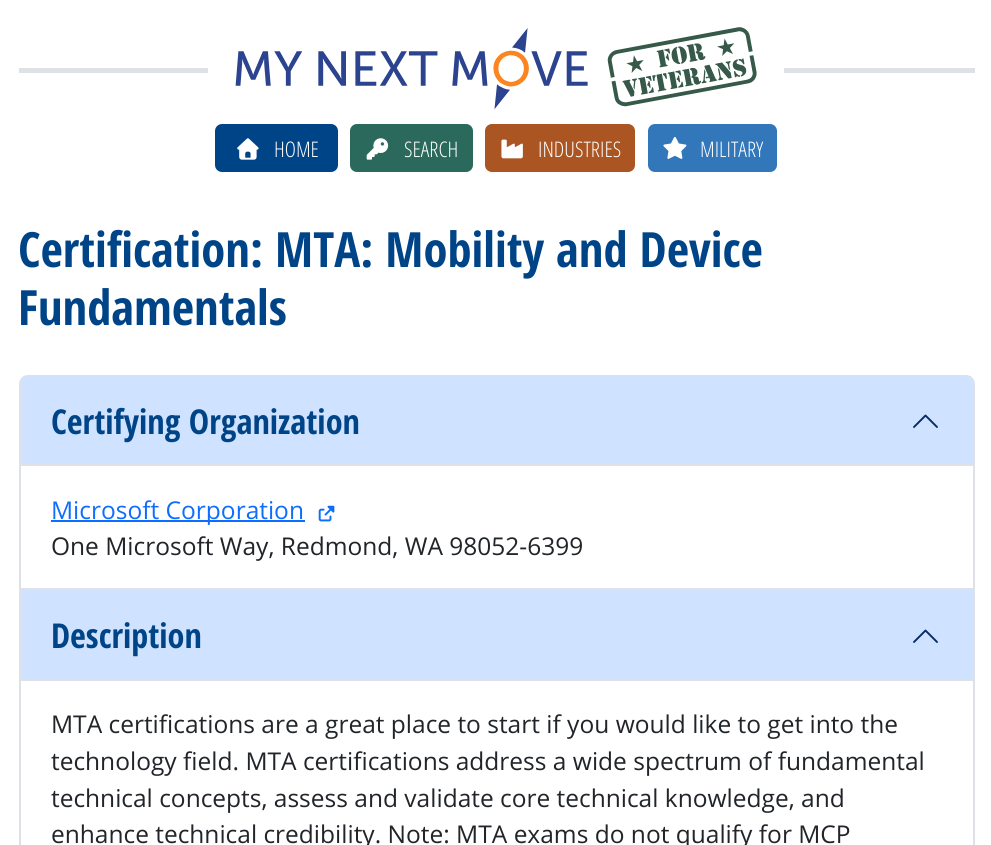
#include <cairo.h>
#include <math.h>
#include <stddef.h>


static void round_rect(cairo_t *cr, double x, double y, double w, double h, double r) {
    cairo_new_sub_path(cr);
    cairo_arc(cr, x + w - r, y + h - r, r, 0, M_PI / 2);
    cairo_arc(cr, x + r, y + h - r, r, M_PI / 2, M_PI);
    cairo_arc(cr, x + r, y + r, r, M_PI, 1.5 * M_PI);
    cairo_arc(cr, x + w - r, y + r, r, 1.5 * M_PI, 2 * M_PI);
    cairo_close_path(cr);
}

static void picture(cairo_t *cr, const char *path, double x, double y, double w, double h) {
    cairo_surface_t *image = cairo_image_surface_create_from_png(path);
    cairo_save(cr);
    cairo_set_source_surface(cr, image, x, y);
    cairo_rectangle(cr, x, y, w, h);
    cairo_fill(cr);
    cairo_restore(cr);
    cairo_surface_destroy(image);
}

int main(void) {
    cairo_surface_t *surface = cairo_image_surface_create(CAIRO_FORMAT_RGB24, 991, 845);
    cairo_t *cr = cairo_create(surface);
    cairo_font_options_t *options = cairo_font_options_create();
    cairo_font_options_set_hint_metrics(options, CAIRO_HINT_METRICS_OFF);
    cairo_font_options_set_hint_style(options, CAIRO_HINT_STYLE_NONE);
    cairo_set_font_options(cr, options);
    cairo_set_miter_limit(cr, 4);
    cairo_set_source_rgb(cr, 1, 1, 1);
    cairo_paint(cr);
    cairo_set_source_rgb(cr, 0.871, 0.886, 0.902);
    cairo_rectangle(cr, 19, 68, 956, 5);
    cairo_fill(cr);
    cairo_set_source_rgb(cr, 1, 1, 1);
    cairo_rectangle(cr, 208, 68, 576, 5);
    cairo_fill(cr);
    picture(cr, "img1.png", 235, 27, 522, 82);
    cairo_set_source_rgb(cr, 0, 0.267, 0.533);
    round_rect(cr, 216, 125, 121, 46, 6);
    cairo_fill_preserve(cr);
    cairo_stroke(cr);
    picture(cr, "img2.png", 237, 138, 22, 22);
    cairo_select_font_face(cr, "Open Sans Light", CAIRO_FONT_SLANT_NORMAL, CAIRO_FONT_WEIGHT_NORMAL);
    cairo_set_font_size(cr, 21.5);
    cairo_set_source_rgb(cr, 1, 1, 1);
    cairo_move_to(cr, 274, 157);
    cairo_show_text(cr, "HOME");
    cairo_set_source_rgb(cr, 0.165, 0.412, 0.357);
    round_rect(cr, 351, 125, 121, 46, 6);
    cairo_fill_preserve(cr);
    cairo_stroke(cr);
    picture(cr, "img3.png", 366, 138, 23, 22);
    cairo_set_source_rgb(cr, 1, 1, 1);
    cairo_move_to(cr, 404, 157);
    cairo_show_text(cr, "SEARCH");
    cairo_set_source_rgb(cr, 0.667, 0.333, 0.133);
    round_rect(cr, 486, 125, 148, 46, 6);
    cairo_fill_preserve(cr);
    cairo_stroke(cr);
    picture(cr, "img4.png", 501, 139, 22, 20);
    cairo_set_source_rgb(cr, 1, 1, 1);
    cairo_move_to(cr, 538, 157);
    cairo_show_text(cr, "INDUSTRIES");
    cairo_set_source_rgb(cr, 0.2, 0.467, 0.733);
    round_rect(cr, 649, 125, 127, 46, 6);
    cairo_fill_preserve(cr);
    cairo_stroke(cr);
    picture(cr, "img5.png", 663, 137, 24, 22);
    cairo_set_source_rgb(cr, 1, 1, 1);
    cairo_move_to(cr, 700, 157);
    cairo_show_text(cr, "MILITARY");
    cairo_select_font_face(cr, "Open Sans Condensed", CAIRO_FONT_SLANT_NORMAL, CAIRO_FONT_WEIGHT_BOLD);
    cairo_set_font_size(cr, 48.6);
    cairo_set_source_rgb(cr, 0, 0.267, 0.533);
    cairo_move_to(cr, 18, 267);
    cairo_show_text(cr, "Certification: MTA: Mobility and Device");
    cairo_move_to(cr, 18, 325);
    cairo_show_text(cr, "Fundamentals");
    cairo_new_path(cr);
    cairo_move_to(cr, 28, 376);
    cairo_line_to(cr, 966, 376);
    cairo_curve_to(cr, 970.5, 376, 974, 379.5, 974, 384);
    cairo_line_to(cr, 974, 589);
    cairo_line_to(cr, 20, 589);
    cairo_line_to(cr, 20, 384);
    cairo_curve_to(cr, 20, 379.5, 23.5, 376, 28, 376);
    cairo_close_path(cr);
    cairo_set_source_rgb(cr, 0.871, 0.886, 0.902);
    cairo_stroke(cr);
    cairo_set_source_rgb(cr, 0.812, 0.886, 1);
    cairo_new_path(cr);
    cairo_move_to(cr, 28, 376);
    cairo_line_to(cr, 966, 376);
    cairo_curve_to(cr, 970, 376, 973, 379, 973, 383);
    cairo_line_to(cr, 973, 466);
    cairo_line_to(cr, 21, 466);
    cairo_line_to(cr, 21, 383);
    cairo_curve_to(cr, 21, 379, 24, 376, 28, 376);
    cairo_close_path(cr);
    cairo_fill(cr);
    cairo_set_source_rgb(cr, 0.871, 0.886, 0.902);
    cairo_rectangle(cr, 21, 464, 952, 2);
    cairo_fill(cr);
    cairo_set_font_size(cr, 34.25);
    cairo_set_source_rgb(cr, 0, 0.267, 0.533);
    cairo_move_to(cr, 51, 434);
    cairo_show_text(cr, "Certifying Organization");
    cairo_new_path(cr);
    cairo_move_to(cr, 937, 427);
    cairo_line_to(cr, 925.5, 415.5);
    cairo_line_to(cr, 914, 427);
    cairo_set_source_rgb(cr, 0.02, 0.173, 0.396);
    cairo_set_line_width(cr, 1.9);
    cairo_set_line_cap(cr, CAIRO_LINE_CAP_ROUND);
    cairo_set_line_join(cr, CAIRO_LINE_JOIN_ROUND);
    cairo_stroke(cr);
    cairo_set_source_rgb(cr, 0.051, 0.431, 0.992);
    cairo_rectangle(cr, 51, 520, 254, 2);
    cairo_fill(cr);
    cairo_select_font_face(cr, "Open Sans", CAIRO_FONT_SLANT_NORMAL, CAIRO_FONT_WEIGHT_NORMAL);
    cairo_set_font_size(cr, 24.5);
    cairo_move_to(cr, 51, 519);
    cairo_show_text(cr, "Microsoft Corporation");
    picture(cr, "img6.png", 318, 505, 17, 17);
    cairo_set_source_rgb(cr, 0.129, 0.145, 0.161);
    cairo_move_to(cr, 51, 555);
    cairo_show_text(cr, "One Microsoft Way, Redmond, WA 98052-6399");
    cairo_set_source_rgb(cr, 0.871, 0.886, 0.902);
    cairo_rectangle(cr, 973, 590, 2, 255);
    cairo_fill(cr);
    cairo_rectangle(cr, 19, 590, 2, 255);
    cairo_fill(cr);
    cairo_set_source_rgb(cr, 0.812, 0.886, 1);
    cairo_rectangle(cr, 21, 590, 952, 89);
    cairo_fill(cr);
    cairo_set_source_rgb(cr, 0.871, 0.886, 0.902);
    cairo_rectangle(cr, 21, 679, 952, 2);
    cairo_fill(cr);
    cairo_select_font_face(cr, "Open Sans Condensed", CAIRO_FONT_SLANT_NORMAL, CAIRO_FONT_WEIGHT_BOLD);
    cairo_set_font_size(cr, 34.25);
    cairo_set_source_rgb(cr, 0, 0.267, 0.533);
    cairo_move_to(cr, 51, 648);
    cairo_show_text(cr, "Description");
    cairo_new_path(cr);
    cairo_move_to(cr, 937, 642);
    cairo_line_to(cr, 925.5, 630.5);
    cairo_line_to(cr, 914, 642);
    cairo_set_source_rgb(cr, 0.02, 0.173, 0.396);
    cairo_stroke(cr);
    cairo_select_font_face(cr, "Open Sans", CAIRO_FONT_SLANT_NORMAL, CAIRO_FONT_WEIGHT_NORMAL);
    cairo_set_font_size(cr, 24.5);
    cairo_set_source_rgb(cr, 0.129, 0.145, 0.161);
    cairo_move_to(cr, 51, 733);
    cairo_show_text(cr, "MTA certifications are a great place to start if you would like to get into the");
    cairo_move_to(cr, 51, 770);
    cairo_show_text(cr, "technology field. MTA certifications address a wide spectrum of fundamental");
    cairo_move_to(cr, 51, 807);
    cairo_show_text(cr, "technical concepts, assess and validate core technical knowledge, and");
    cairo_move_to(cr, 51, 843);
    cairo_show_text(cr, "enhance technical credibility. Note: MTA exams do not qualify for MCP");
    cairo_surface_write_to_png(surface, "page.png");
    cairo_font_options_destroy(options);
    cairo_destroy(cr);
    cairo_surface_destroy(surface);
    return 0;
}
